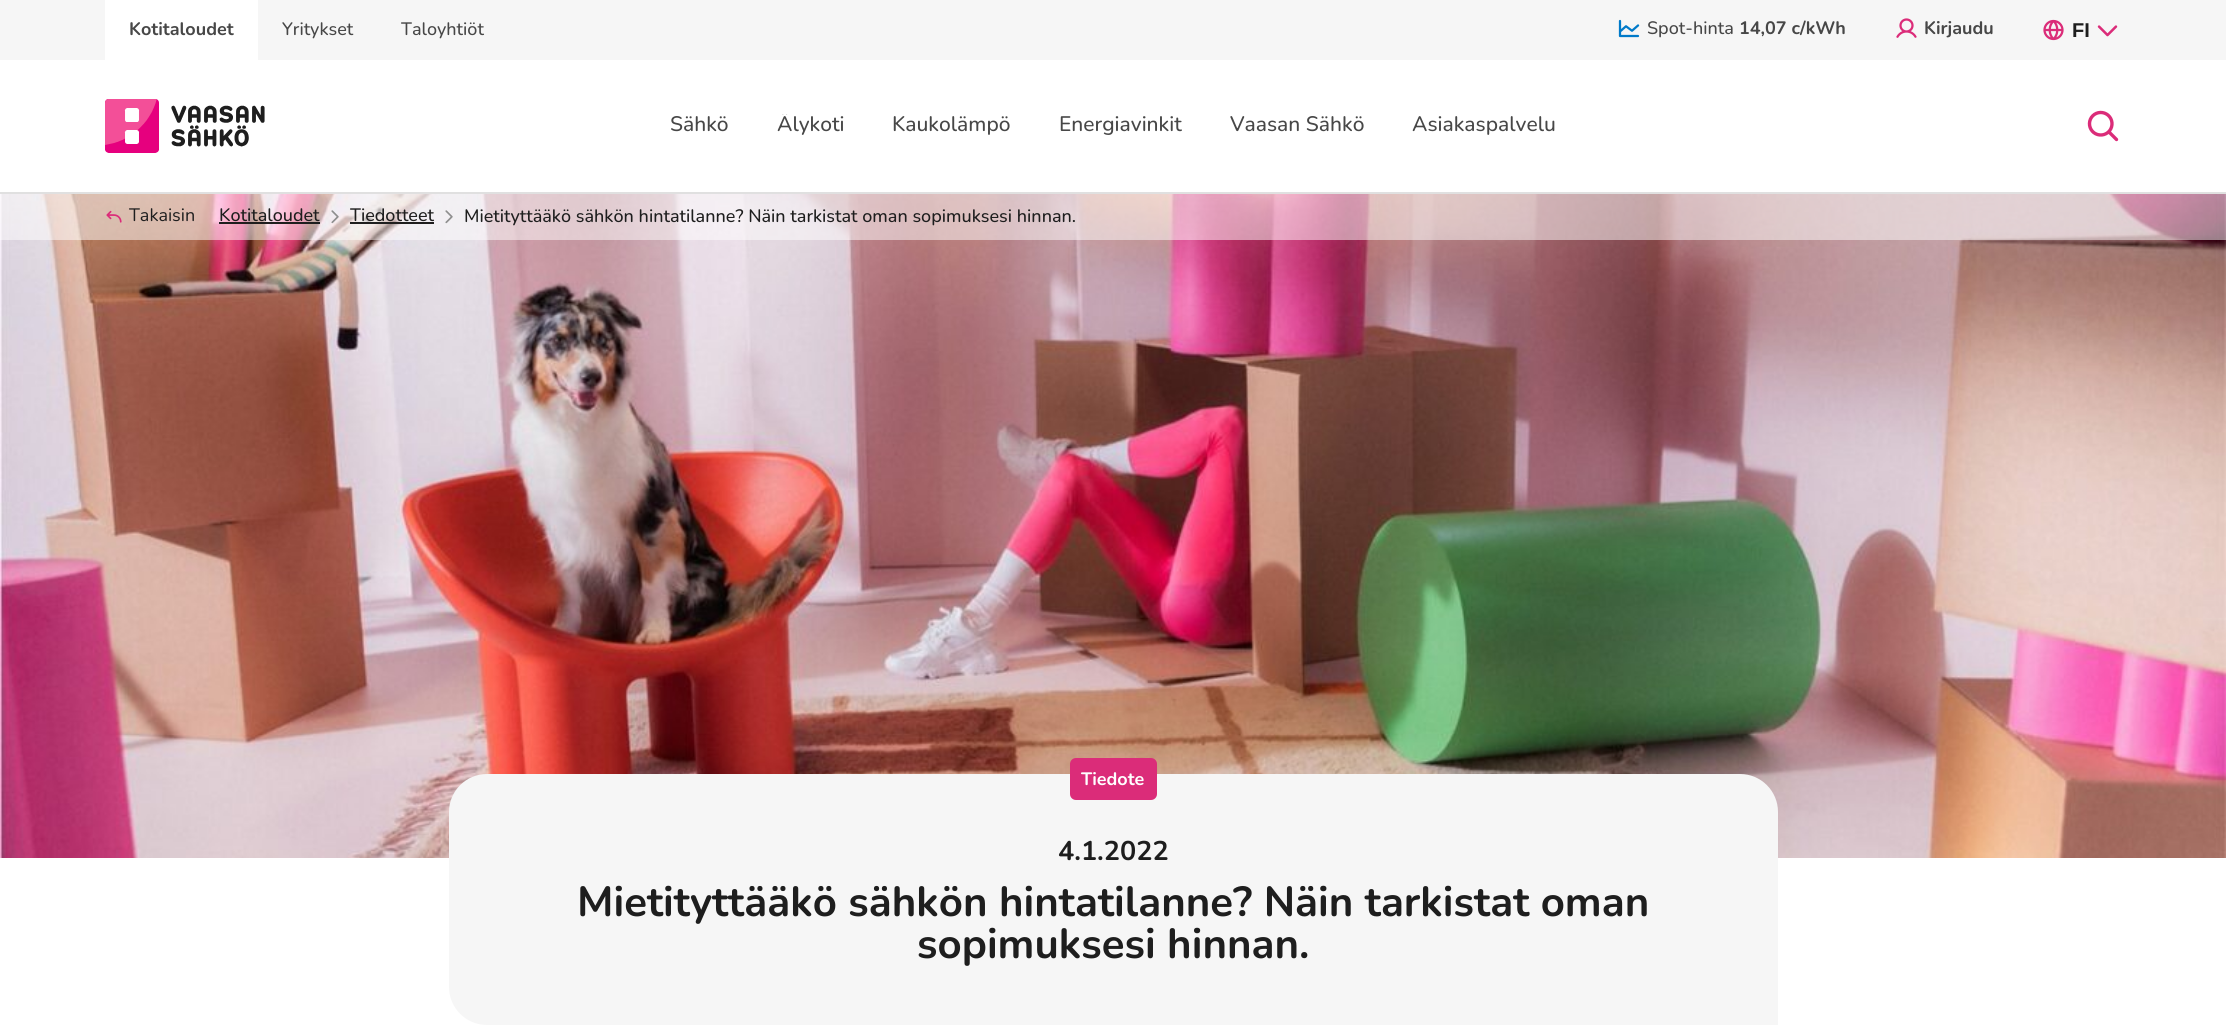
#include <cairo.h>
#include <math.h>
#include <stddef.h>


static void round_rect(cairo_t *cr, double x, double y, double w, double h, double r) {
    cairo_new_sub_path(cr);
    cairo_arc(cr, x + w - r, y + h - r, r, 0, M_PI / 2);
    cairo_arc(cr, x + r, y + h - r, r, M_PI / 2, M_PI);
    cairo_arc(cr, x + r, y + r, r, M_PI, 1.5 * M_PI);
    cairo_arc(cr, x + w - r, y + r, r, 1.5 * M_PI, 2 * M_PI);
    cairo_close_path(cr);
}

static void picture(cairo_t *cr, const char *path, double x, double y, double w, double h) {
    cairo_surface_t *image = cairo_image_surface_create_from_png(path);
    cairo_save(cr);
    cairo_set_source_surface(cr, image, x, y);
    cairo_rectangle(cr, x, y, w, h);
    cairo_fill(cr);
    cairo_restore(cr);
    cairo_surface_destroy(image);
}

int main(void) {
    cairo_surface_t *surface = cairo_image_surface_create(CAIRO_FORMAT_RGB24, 2226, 1032);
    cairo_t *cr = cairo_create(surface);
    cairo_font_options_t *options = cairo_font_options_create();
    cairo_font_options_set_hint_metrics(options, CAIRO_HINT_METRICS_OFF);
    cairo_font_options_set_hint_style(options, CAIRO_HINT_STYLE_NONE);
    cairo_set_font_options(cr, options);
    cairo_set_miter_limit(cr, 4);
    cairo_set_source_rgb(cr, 0.961, 0.961, 0.961);
    cairo_paint(cr);
    cairo_set_source_rgb(cr, 1, 1, 1);
    cairo_rectangle(cr, 105, 0, 153, 60);
    cairo_fill(cr);
    cairo_select_font_face(cr, "Nunito ExtraLight", CAIRO_FONT_SLANT_NORMAL, CAIRO_FONT_WEIGHT_NORMAL);
    cairo_set_font_size(cr, 18);
    cairo_set_source_rgb(cr, 0.278, 0.278, 0.278);
    cairo_move_to(cr, 129, 35);
    cairo_show_text(cr, "Kotitaloudet");
    cairo_select_font_face(cr, "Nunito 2 ExtraLight", CAIRO_FONT_SLANT_NORMAL, CAIRO_FONT_WEIGHT_NORMAL);
    cairo_move_to(cr, 282, 35);
    cairo_show_text(cr, "Yritykset");
    cairo_move_to(cr, 401, 35);
    cairo_show_text(cr, "Taloyhtiöt");
    picture(cr, "img1.png", 1618, 19, 22, 19);
    cairo_move_to(cr, 1647, 34);
    cairo_show_text(cr, "Spot-hinta");
    cairo_select_font_face(cr, "Nunito ExtraLight", CAIRO_FONT_SLANT_NORMAL, CAIRO_FONT_WEIGHT_NORMAL);
    cairo_move_to(cr, 1739, 34);
    cairo_show_text(cr, "14,07 c/kWh");
    picture(cr, "img2.png", 1896, 18, 21, 20);
    cairo_move_to(cr, 1924, 34);
    cairo_show_text(cr, "Kirjaudu");
    picture(cr, "img3.png", 2043, 19, 21, 22);
    cairo_select_font_face(cr, "Liberation Sans", CAIRO_FONT_SLANT_NORMAL, CAIRO_FONT_WEIGHT_BOLD);
    cairo_set_font_size(cr, 20);
    cairo_set_source_rgb(cr, 0.118, 0.118, 0.118);
    cairo_move_to(cr, 2072, 37);
    cairo_show_text(cr, "FI");
    picture(cr, "img4.png", 2097, 25, 21, 12);
    cairo_set_source_rgb(cr, 1, 1, 1);
    cairo_rectangle(cr, 0, 60, 2226, 132);
    cairo_fill(cr);
    picture(cr, "img5.png", 105, 99, 160, 54);
    cairo_select_font_face(cr, "Nunito 2 ExtraLight", CAIRO_FONT_SLANT_NORMAL, CAIRO_FONT_WEIGHT_NORMAL);
    cairo_set_font_size(cr, 21);
    cairo_set_source_rgb(cr, 0.278, 0.278, 0.278);
    cairo_move_to(cr, 670, 131);
    cairo_show_text(cr, "Sähkö");
    cairo_save(cr);
    cairo_rectangle(cr, 777, 114, 68, 24);
    cairo_clip(cr);
    cairo_move_to(cr, 777, 131);
    cairo_show_text(cr, "Älykoti");
    cairo_restore(cr);
    cairo_move_to(cr, 892, 131);
    cairo_show_text(cr, "Kaukolämpö");
    cairo_move_to(cr, 1059, 131);
    cairo_show_text(cr, "Energiavinkit");
    cairo_move_to(cr, 1230, 131);
    cairo_show_text(cr, "Vaasan Sähkö");
    cairo_move_to(cr, 1412, 131);
    cairo_show_text(cr, "Asiakaspalvelu");
    cairo_set_source_rgb(cr, 0.878, 0.878, 0.878);
    cairo_rectangle(cr, 0, 192, 2226, 2);
    cairo_fill(cr);
    picture(cr, "img6.png", 2087, 110, 32, 32);
    picture(cr, "img10.png", 0, 194, 2226, 664);
    cairo_set_source_rgba(cr, 1, 1, 1, 0.5);
    cairo_rectangle(cr, 0, 194, 2226, 46);
    cairo_fill(cr);
    picture(cr, "img7.png", 106, 210, 16, 13);
    cairo_select_font_face(cr, "Nunito", CAIRO_FONT_SLANT_NORMAL, CAIRO_FONT_WEIGHT_NORMAL);
    cairo_set_font_size(cr, 18);
    cairo_set_source_rgb(cr, 0.118, 0.118, 0.118);
    cairo_move_to(cr, 129, 221);
    cairo_show_text(cr, "Takaisin");
    cairo_select_font_face(cr, "Nunito 2 ExtraLight", CAIRO_FONT_SLANT_NORMAL, CAIRO_FONT_WEIGHT_NORMAL);
    cairo_move_to(cr, 219, 221);
    cairo_show_text(cr, "Kotitaloudet");
    cairo_rectangle(cr, 219, 222, 101, 2);
    cairo_fill(cr);
    picture(cr, "img8.png", 331, 210, 8, 14);
    cairo_move_to(cr, 350, 221);
    cairo_show_text(cr, "Tiedotteet");
    cairo_rectangle(cr, 350, 222, 84, 2);
    cairo_fill(cr);
    picture(cr, "img9.png", 445, 210, 8, 14);
    cairo_move_to(cr, 464, 222);
    cairo_show_text(cr, "Mietityttääkö sähkön hintatilanne? Näin tarkistat oman sopimuksesi hinnan.");
    cairo_set_source_rgb(cr, 1, 1, 1);
    cairo_rectangle(cr, 0, 858, 2226, 174);
    cairo_fill(cr);
    cairo_set_source_rgb(cr, 0.961, 0.961, 0.961);
    cairo_new_path(cr);
    cairo_move_to(cr, 487, 774);
    cairo_line_to(cr, 1740, 774);
    cairo_curve_to(cr, 1761, 774, 1778, 791, 1778, 812);
    cairo_line_to(cr, 1778, 1025);
    cairo_line_to(cr, 487, 1025);
    cairo_curve_to(cr, 466, 1025, 449, 1008, 449, 987);
    cairo_line_to(cr, 449, 812);
    cairo_curve_to(cr, 449, 791, 466, 774, 487, 774);
    cairo_close_path(cr);
    cairo_fill(cr);
    cairo_set_source_rgb(cr, 0.859, 0.173, 0.475);
    round_rect(cr, 1070, 758, 87, 42, 6);
    cairo_fill(cr);
    cairo_select_font_face(cr, "Nunito ExtraLight", CAIRO_FONT_SLANT_NORMAL, CAIRO_FONT_WEIGHT_NORMAL);
    cairo_set_source_rgb(cr, 1, 1, 1);
    cairo_move_to(cr, 1081, 785);
    cairo_show_text(cr, "Tiedote");
    cairo_set_font_size(cr, 27);
    cairo_set_source_rgb(cr, 0.118, 0.118, 0.118);
    cairo_move_to(cr, 1058, 860);
    cairo_show_text(cr, "4.1.2022");
    cairo_set_font_size(cr, 42);
    cairo_move_to(cr, 577, 916);
    cairo_show_text(cr, "Mietityttääkö sähkön hintatilanne? Näin tarkistat oman");
    cairo_move_to(cr, 917, 958);
    cairo_show_text(cr, "sopimuksesi hinnan.");
    cairo_surface_write_to_png(surface, "page.png");
    cairo_font_options_destroy(options);
    cairo_destroy(cr);
    cairo_surface_destroy(surface);
    return 0;
}
